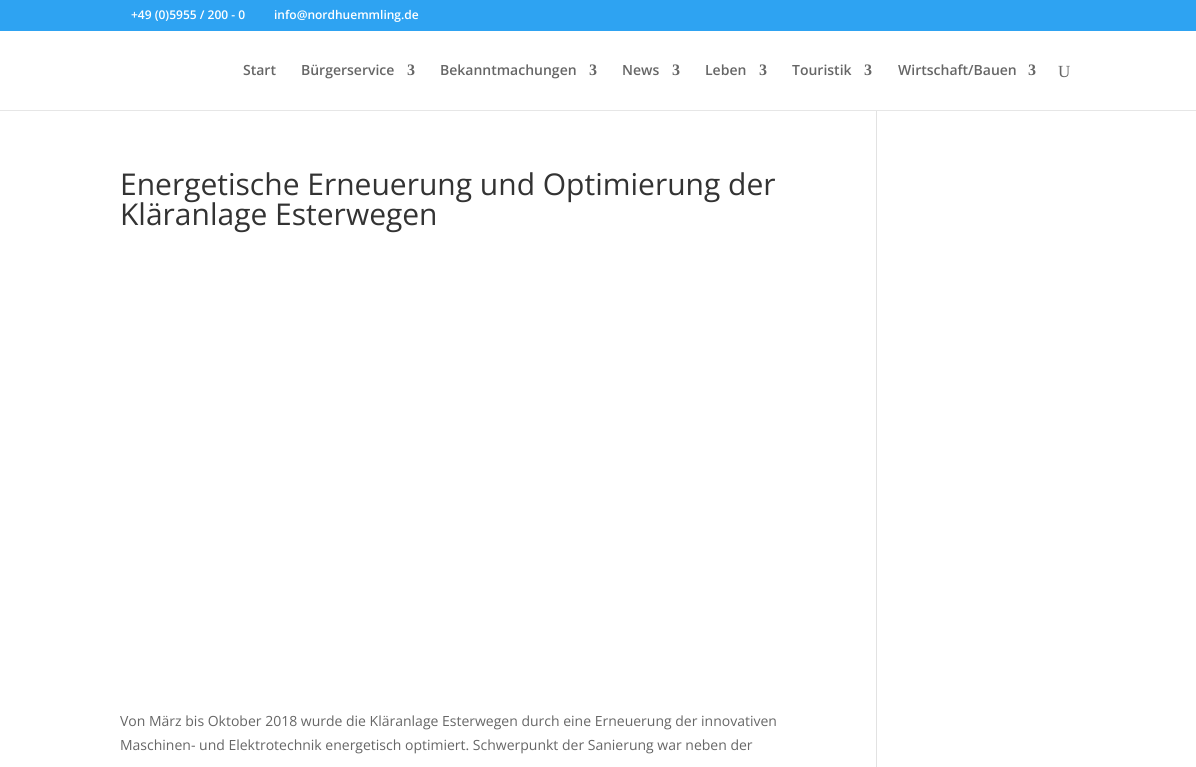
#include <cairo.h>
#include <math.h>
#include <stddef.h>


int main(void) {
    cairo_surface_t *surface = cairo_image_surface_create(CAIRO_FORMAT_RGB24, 1196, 767);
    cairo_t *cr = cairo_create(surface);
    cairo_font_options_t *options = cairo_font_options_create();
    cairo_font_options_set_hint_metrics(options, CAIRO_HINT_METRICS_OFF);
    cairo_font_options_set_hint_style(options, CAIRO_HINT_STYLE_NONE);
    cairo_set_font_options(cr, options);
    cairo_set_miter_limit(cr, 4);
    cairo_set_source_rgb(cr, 1, 1, 1);
    cairo_paint(cr);
    cairo_set_source_rgb(cr, 0.18, 0.639, 0.949);
    cairo_rectangle(cr, 0, 0, 1196, 31);
    cairo_fill(cr);
    cairo_select_font_face(cr, "Open Sans SemiBold", CAIRO_FONT_SLANT_NORMAL, CAIRO_FONT_WEIGHT_NORMAL);
    cairo_set_font_size(cr, 12);
    cairo_set_source_rgb(cr, 1, 1, 1);
    cairo_move_to(cr, 131, 19);
    cairo_show_text(cr, "+49 (0)5955 / 200 - 0");
    cairo_move_to(cr, 274, 19);
    cairo_show_text(cr, "info@nordhuemmling.de");
    cairo_set_source_rgb(cr, 0.902, 0.902, 0.902);
    cairo_rectangle(cr, 0, 110, 1196, 1);
    cairo_fill(cr);
    cairo_set_font_size(cr, 14);
    cairo_set_source_rgb(cr, 0.4, 0.4, 0.4);
    cairo_move_to(cr, 243, 75);
    cairo_show_text(cr, "Start");
    cairo_move_to(cr, 301, 75);
    cairo_show_text(cr, "Bürgerservice");
    cairo_select_font_face(cr, "Liberation Serif", CAIRO_FONT_SLANT_NORMAL, CAIRO_FONT_WEIGHT_BOLD);
    cairo_set_font_size(cr, 16);
    cairo_move_to(cr, 407, 75);
    cairo_show_text(cr, "3");
    cairo_select_font_face(cr, "Open Sans SemiBold", CAIRO_FONT_SLANT_NORMAL, CAIRO_FONT_WEIGHT_NORMAL);
    cairo_set_font_size(cr, 14);
    cairo_move_to(cr, 440, 75);
    cairo_show_text(cr, "Bekanntmachungen");
    cairo_select_font_face(cr, "Liberation Serif", CAIRO_FONT_SLANT_NORMAL, CAIRO_FONT_WEIGHT_BOLD);
    cairo_set_font_size(cr, 16);
    cairo_move_to(cr, 589, 75);
    cairo_show_text(cr, "3");
    cairo_select_font_face(cr, "Open Sans SemiBold", CAIRO_FONT_SLANT_NORMAL, CAIRO_FONT_WEIGHT_NORMAL);
    cairo_set_font_size(cr, 14);
    cairo_move_to(cr, 622, 75);
    cairo_show_text(cr, "News");
    cairo_select_font_face(cr, "Liberation Serif", CAIRO_FONT_SLANT_NORMAL, CAIRO_FONT_WEIGHT_BOLD);
    cairo_set_font_size(cr, 16);
    cairo_move_to(cr, 672, 75);
    cairo_show_text(cr, "3");
    cairo_select_font_face(cr, "Open Sans SemiBold", CAIRO_FONT_SLANT_NORMAL, CAIRO_FONT_WEIGHT_NORMAL);
    cairo_set_font_size(cr, 14);
    cairo_move_to(cr, 705, 75);
    cairo_show_text(cr, "Leben");
    cairo_select_font_face(cr, "Liberation Serif", CAIRO_FONT_SLANT_NORMAL, CAIRO_FONT_WEIGHT_BOLD);
    cairo_set_font_size(cr, 16);
    cairo_move_to(cr, 759, 75);
    cairo_show_text(cr, "3");
    cairo_select_font_face(cr, "Open Sans SemiBold", CAIRO_FONT_SLANT_NORMAL, CAIRO_FONT_WEIGHT_NORMAL);
    cairo_set_font_size(cr, 14);
    cairo_move_to(cr, 792, 75);
    cairo_show_text(cr, "Touristik");
    cairo_select_font_face(cr, "Liberation Serif", CAIRO_FONT_SLANT_NORMAL, CAIRO_FONT_WEIGHT_BOLD);
    cairo_set_font_size(cr, 16);
    cairo_move_to(cr, 864, 75);
    cairo_show_text(cr, "3");
    cairo_select_font_face(cr, "Open Sans SemiBold", CAIRO_FONT_SLANT_NORMAL, CAIRO_FONT_WEIGHT_NORMAL);
    cairo_set_font_size(cr, 14);
    cairo_move_to(cr, 898, 75);
    cairo_show_text(cr, "Wirtschaft/Bauen");
    cairo_select_font_face(cr, "Liberation Serif", CAIRO_FONT_SLANT_NORMAL, CAIRO_FONT_WEIGHT_BOLD);
    cairo_set_font_size(cr, 16);
    cairo_move_to(cr, 1028, 75);
    cairo_show_text(cr, "3");
    cairo_select_font_face(cr, "Liberation Serif", CAIRO_FONT_SLANT_NORMAL, CAIRO_FONT_WEIGHT_NORMAL);
    cairo_set_font_size(cr, 17);
    cairo_move_to(cr, 1058, 77);
    cairo_show_text(cr, "U");
    cairo_select_font_face(cr, "Open Sans", CAIRO_FONT_SLANT_NORMAL, CAIRO_FONT_WEIGHT_NORMAL);
    cairo_set_font_size(cr, 30);
    cairo_set_source_rgb(cr, 0.2, 0.2, 0.2);
    cairo_move_to(cr, 120, 195);
    cairo_show_text(cr, "Energetische Erneuerung und Optimierung der");
    cairo_move_to(cr, 120, 225);
    cairo_show_text(cr, "Kläranlage Esterwegen");
    cairo_set_font_size(cr, 14);
    cairo_set_source_rgb(cr, 0.4, 0.4, 0.4);
    cairo_move_to(cr, 120, 726);
    cairo_show_text(cr, "Von März bis Oktober 2018 wurde die Kläranlage Esterwegen durch eine Erneuerung der innovativen");
    cairo_move_to(cr, 120, 750);
    cairo_show_text(cr, "Maschinen- und Elektrotechnik energetisch optimiert. Schwerpunkt der Sanierung war neben der");
    cairo_set_source_rgb(cr, 0.886, 0.886, 0.886);
    cairo_rectangle(cr, 876, 111, 1, 656);
    cairo_fill(cr);
    cairo_surface_write_to_png(surface, "page.png");
    cairo_font_options_destroy(options);
    cairo_destroy(cr);
    cairo_surface_destroy(surface);
    return 0;
}
